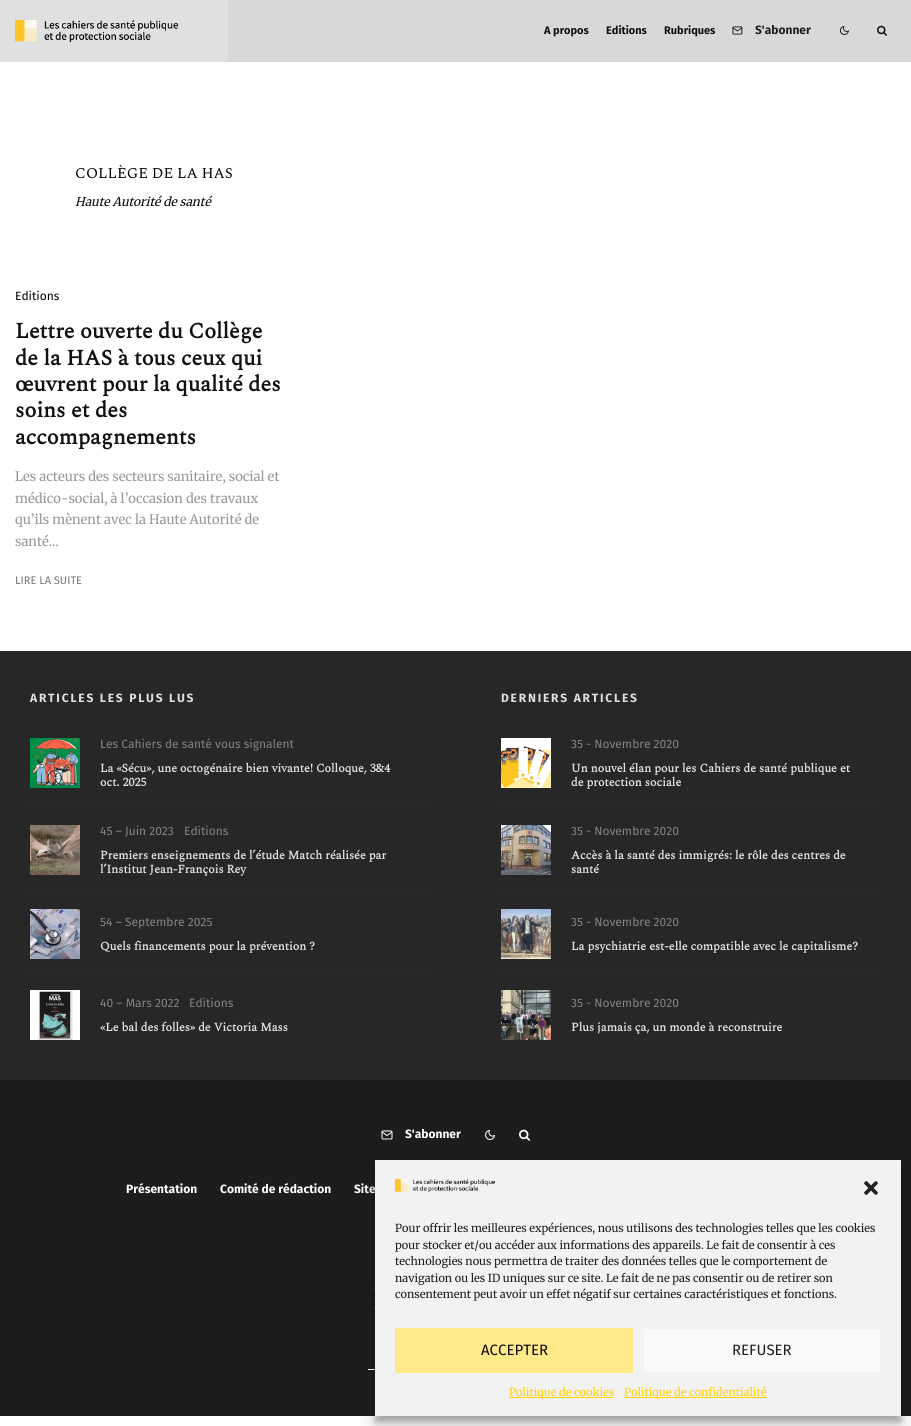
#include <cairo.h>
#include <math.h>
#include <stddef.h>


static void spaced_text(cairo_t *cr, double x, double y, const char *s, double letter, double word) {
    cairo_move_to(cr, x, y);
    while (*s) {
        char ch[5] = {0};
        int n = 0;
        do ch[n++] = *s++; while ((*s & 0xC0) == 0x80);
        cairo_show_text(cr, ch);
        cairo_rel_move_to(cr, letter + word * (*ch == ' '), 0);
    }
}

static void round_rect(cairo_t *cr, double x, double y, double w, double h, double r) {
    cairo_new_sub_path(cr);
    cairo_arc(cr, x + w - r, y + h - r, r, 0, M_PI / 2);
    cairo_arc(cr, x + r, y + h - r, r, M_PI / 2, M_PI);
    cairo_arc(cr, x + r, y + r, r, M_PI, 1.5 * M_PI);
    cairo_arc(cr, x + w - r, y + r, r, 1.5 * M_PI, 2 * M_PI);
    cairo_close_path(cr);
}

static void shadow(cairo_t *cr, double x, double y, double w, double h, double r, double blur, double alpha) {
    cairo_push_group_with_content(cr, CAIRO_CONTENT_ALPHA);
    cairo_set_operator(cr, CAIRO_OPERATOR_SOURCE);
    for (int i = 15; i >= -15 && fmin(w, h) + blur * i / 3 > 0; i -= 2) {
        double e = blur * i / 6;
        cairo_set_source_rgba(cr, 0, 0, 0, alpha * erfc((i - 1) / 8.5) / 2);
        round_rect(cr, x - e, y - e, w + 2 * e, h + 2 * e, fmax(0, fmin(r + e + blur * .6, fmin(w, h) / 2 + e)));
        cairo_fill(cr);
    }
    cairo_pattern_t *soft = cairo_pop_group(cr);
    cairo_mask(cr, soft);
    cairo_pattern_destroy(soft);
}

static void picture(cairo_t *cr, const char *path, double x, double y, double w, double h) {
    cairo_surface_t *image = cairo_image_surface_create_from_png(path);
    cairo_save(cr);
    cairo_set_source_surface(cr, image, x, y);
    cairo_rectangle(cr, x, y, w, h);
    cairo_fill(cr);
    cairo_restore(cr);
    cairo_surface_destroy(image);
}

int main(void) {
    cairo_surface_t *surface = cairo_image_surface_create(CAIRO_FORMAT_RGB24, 911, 1426);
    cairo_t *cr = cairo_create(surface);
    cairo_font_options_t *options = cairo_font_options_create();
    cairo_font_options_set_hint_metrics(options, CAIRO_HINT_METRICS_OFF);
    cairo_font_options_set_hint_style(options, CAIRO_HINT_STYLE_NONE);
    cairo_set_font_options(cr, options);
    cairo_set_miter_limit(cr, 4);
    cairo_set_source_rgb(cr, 1, 1, 1);
    cairo_paint(cr);
    cairo_set_source_rgb(cr, 0.847, 0.847, 0.847);
    cairo_rectangle(cr, 228, 0, 683, 62);
    cairo_fill(cr);
    cairo_set_source_rgb(cr, 0.878, 0.878, 0.878);
    cairo_rectangle(cr, 0, 0, 228, 62);
    cairo_fill(cr);
    picture(cr, "img1.png", 15, 20, 163, 22);
    cairo_select_font_face(cr, "Fira Sans", CAIRO_FONT_SLANT_NORMAL, CAIRO_FONT_WEIGHT_BOLD);
    cairo_set_font_size(cr, 11);
    cairo_set_source_rgb(cr, 0.067, 0.067, 0.067);
    cairo_move_to(cr, 544, 34);
    cairo_show_text(cr, "A propos");
    cairo_move_to(cr, 606, 34);
    cairo_show_text(cr, "Editions");
    cairo_move_to(cr, 664, 34);
    cairo_show_text(cr, "Rubriques");
    picture(cr, "img2.png", 732, 26, 11, 9);
    cairo_set_font_size(cr, 12);
    cairo_set_source_rgb(cr, 0.118, 0.118, 0.118);
    cairo_move_to(cr, 755, 34);
    cairo_show_text(cr, "S'abonner");
    picture(cr, "img3.png", 839, 26, 10, 9);
    picture(cr, "img4.png", 877, 25, 10, 11);
    cairo_select_font_face(cr, "Spectral", CAIRO_FONT_SLANT_NORMAL, CAIRO_FONT_WEIGHT_NORMAL);
    cairo_set_font_size(cr, 15);
    cairo_set_source_rgb(cr, 0, 0, 0);
    cairo_move_to(cr, 75, 178);
    cairo_show_text(cr, "COLLÈGE DE LA HAS");
    cairo_select_font_face(cr, "Merriweather", CAIRO_FONT_SLANT_ITALIC, CAIRO_FONT_WEIGHT_NORMAL);
    cairo_set_font_size(cr, 12);
    cairo_set_source_rgb(cr, 0.039, 0.039, 0.039);
    cairo_move_to(cr, 75, 206);
    cairo_show_text(cr, "Haute Autorité de santé");
    cairo_select_font_face(cr, "Fira Sans", CAIRO_FONT_SLANT_NORMAL, CAIRO_FONT_WEIGHT_NORMAL);
    cairo_set_source_rgb(cr, 0, 0, 0);
    cairo_move_to(cr, 15, 300);
    cairo_show_text(cr, "Editions");
    cairo_select_font_face(cr, "Spectral", CAIRO_FONT_SLANT_NORMAL, CAIRO_FONT_WEIGHT_BOLD);
    cairo_set_font_size(cr, 22);
    cairo_set_source_rgb(cr, 0.067, 0.067, 0.067);
    cairo_move_to(cr, 15, 338);
    cairo_show_text(cr, "Lettre ouverte du Collège");
    cairo_move_to(cr, 15, 365);
    cairo_show_text(cr, "de la HAS à tous ceux qui");
    cairo_move_to(cr, 15, 391);
    cairo_show_text(cr, "œuvrent pour la qualité des");
    cairo_move_to(cr, 15, 417);
    cairo_show_text(cr, "soins et des");
    cairo_move_to(cr, 15, 444);
    cairo_show_text(cr, "accompagnements");
    cairo_select_font_face(cr, "Merriweather", CAIRO_FONT_SLANT_NORMAL, CAIRO_FONT_WEIGHT_NORMAL);
    cairo_set_font_size(cr, 13);
    cairo_set_source_rgb(cr, 0.596, 0.596, 0.596);
    cairo_move_to(cr, 15, 481);
    cairo_show_text(cr, "Les acteurs des secteurs sanitaire, social et");
    cairo_move_to(cr, 15, 503);
    cairo_show_text(cr, "médico-social, à l’occasion des travaux");
    cairo_move_to(cr, 15, 524);
    cairo_show_text(cr, "qu’ils mènent avec la Haute Autorité de");
    cairo_move_to(cr, 15, 546);
    cairo_show_text(cr, "santé...");
    cairo_select_font_face(cr, "Fira Sans", CAIRO_FONT_SLANT_NORMAL, CAIRO_FONT_WEIGHT_NORMAL);
    cairo_set_font_size(cr, 11);
    cairo_set_source_rgb(cr, 0.463, 0.463, 0.463);
    cairo_move_to(cr, 15, 584);
    cairo_show_text(cr, "LIRE LA SUITE");
    cairo_set_source_rgb(cr, 0.153, 0.153, 0.153);
    cairo_rectangle(cr, 0, 651, 911, 429);
    cairo_fill(cr);
    cairo_select_font_face(cr, "Fira Sans", CAIRO_FONT_SLANT_NORMAL, CAIRO_FONT_WEIGHT_BOLD);
    cairo_set_font_size(cr, 12);
    cairo_set_source_rgb(cr, 0.867, 0.871, 0.871);
    spaced_text(cr, 30, 702, "ARTICLES LES PLUS LUS", 1.8, 0);
    cairo_new_path(cr);
    cairo_move_to(cr, 30, 806.5);
    cairo_line_to(cr, 426, 806.5);
    cairo_set_source_rgb(cr, 0.176, 0.176, 0.176);
    cairo_set_line_width(cr, 1);
    cairo_set_dash(cr, (double[]){1, 1}, 2, 0);
    cairo_stroke(cr);
    picture(cr, "img5.png", 30, 738, 50, 50);
    cairo_select_font_face(cr, "Fira Sans", CAIRO_FONT_SLANT_NORMAL, CAIRO_FONT_WEIGHT_NORMAL);
    cairo_set_source_rgb(cr, 0.51, 0.514, 0.514);
    cairo_move_to(cr, 100, 748);
    cairo_show_text(cr, "Les Cahiers de santé vous signalent");
    cairo_select_font_face(cr, "Spectral", CAIRO_FONT_SLANT_NORMAL, CAIRO_FONT_WEIGHT_BOLD);
    cairo_set_source_rgb(cr, 0.867, 0.871, 0.871);
    cairo_move_to(cr, 100, 772);
    cairo_show_text(cr, "La «Sécu», une octogénaire bien vivante! Colloque, 3&4");
    cairo_move_to(cr, 100, 786);
    cairo_show_text(cr, "oct. 2025");
    cairo_new_path(cr);
    cairo_move_to(cr, 30, 893.5);
    cairo_line_to(cr, 426, 893.5);
    cairo_set_source_rgb(cr, 0.176, 0.176, 0.176);
    cairo_stroke(cr);
    picture(cr, "img6.png", 30, 825, 50, 50);
    cairo_select_font_face(cr, "Fira Sans", CAIRO_FONT_SLANT_NORMAL, CAIRO_FONT_WEIGHT_NORMAL);
    cairo_set_source_rgb(cr, 0.51, 0.514, 0.514);
    cairo_move_to(cr, 100, 835);
    cairo_show_text(cr, "45 – Juin 2023");
    cairo_move_to(cr, 184, 835);
    cairo_show_text(cr, "Editions");
    cairo_select_font_face(cr, "Spectral", CAIRO_FONT_SLANT_NORMAL, CAIRO_FONT_WEIGHT_BOLD);
    cairo_set_source_rgb(cr, 0.867, 0.871, 0.871);
    cairo_move_to(cr, 100, 859);
    cairo_show_text(cr, "Premiers enseignements de l’étude Match réalisée par");
    cairo_move_to(cr, 100, 873);
    cairo_show_text(cr, "l’Institut Jean-François Rey");
    cairo_new_path(cr);
    cairo_move_to(cr, 30, 974.5);
    cairo_line_to(cr, 426, 974.5);
    cairo_set_source_rgb(cr, 0.176, 0.176, 0.176);
    cairo_stroke(cr);
    picture(cr, "img7.png", 30, 909, 50, 50);
    cairo_select_font_face(cr, "Fira Sans", CAIRO_FONT_SLANT_NORMAL, CAIRO_FONT_WEIGHT_NORMAL);
    cairo_set_source_rgb(cr, 0.51, 0.514, 0.514);
    cairo_move_to(cr, 100, 926);
    cairo_show_text(cr, "54 – Septembre 2025");
    cairo_select_font_face(cr, "Spectral", CAIRO_FONT_SLANT_NORMAL, CAIRO_FONT_WEIGHT_BOLD);
    cairo_set_source_rgb(cr, 0.867, 0.871, 0.871);
    cairo_move_to(cr, 100, 950);
    cairo_show_text(cr, "Quels financements pour la prévention ?");
    picture(cr, "img8.png", 30, 990, 50, 50);
    cairo_select_font_face(cr, "Fira Sans", CAIRO_FONT_SLANT_NORMAL, CAIRO_FONT_WEIGHT_NORMAL);
    cairo_set_source_rgb(cr, 0.51, 0.514, 0.514);
    cairo_move_to(cr, 100, 1007);
    cairo_show_text(cr, "40 – Mars 2022");
    cairo_move_to(cr, 189, 1007);
    cairo_show_text(cr, "Editions");
    cairo_select_font_face(cr, "Spectral", CAIRO_FONT_SLANT_NORMAL, CAIRO_FONT_WEIGHT_BOLD);
    cairo_set_source_rgb(cr, 0.867, 0.871, 0.871);
    cairo_move_to(cr, 100, 1031);
    cairo_show_text(cr, "«Le bal des folles» de Victoria Mass");
    cairo_select_font_face(cr, "Fira Sans", CAIRO_FONT_SLANT_NORMAL, CAIRO_FONT_WEIGHT_BOLD);
    spaced_text(cr, 501, 702, "DERNIERS ARTICLES", 1.8, 0);
    cairo_new_path(cr);
    cairo_move_to(cr, 501, 806.5);
    cairo_line_to(cr, 881, 806.5);
    cairo_set_source_rgb(cr, 0.176, 0.176, 0.176);
    cairo_stroke(cr);
    picture(cr, "img9.png", 501, 738, 50, 50);
    cairo_select_font_face(cr, "Fira Sans", CAIRO_FONT_SLANT_NORMAL, CAIRO_FONT_WEIGHT_NORMAL);
    cairo_set_source_rgb(cr, 0.51, 0.514, 0.514);
    cairo_move_to(cr, 571, 748);
    cairo_show_text(cr, "35 - Novembre 2020");
    cairo_select_font_face(cr, "Spectral", CAIRO_FONT_SLANT_NORMAL, CAIRO_FONT_WEIGHT_BOLD);
    cairo_set_source_rgb(cr, 0.867, 0.871, 0.871);
    cairo_move_to(cr, 571, 772);
    cairo_show_text(cr, "Un nouvel élan pour les Cahiers de santé publique et");
    cairo_move_to(cr, 571, 786);
    cairo_show_text(cr, "de protection sociale");
    cairo_new_path(cr);
    cairo_move_to(cr, 501, 893.5);
    cairo_line_to(cr, 881, 893.5);
    cairo_set_source_rgb(cr, 0.176, 0.176, 0.176);
    cairo_stroke(cr);
    picture(cr, "img10.png", 501, 825, 50, 50);
    cairo_select_font_face(cr, "Fira Sans", CAIRO_FONT_SLANT_NORMAL, CAIRO_FONT_WEIGHT_NORMAL);
    cairo_set_source_rgb(cr, 0.51, 0.514, 0.514);
    cairo_move_to(cr, 571, 835);
    cairo_show_text(cr, "35 - Novembre 2020");
    cairo_select_font_face(cr, "Spectral", CAIRO_FONT_SLANT_NORMAL, CAIRO_FONT_WEIGHT_BOLD);
    cairo_set_source_rgb(cr, 0.867, 0.871, 0.871);
    cairo_move_to(cr, 571, 859);
    cairo_show_text(cr, "Accès à la santé des immigrés: le rôle des centres de");
    cairo_move_to(cr, 571, 873);
    cairo_show_text(cr, "santé");
    cairo_new_path(cr);
    cairo_move_to(cr, 501, 974.5);
    cairo_line_to(cr, 881, 974.5);
    cairo_set_source_rgb(cr, 0.176, 0.176, 0.176);
    cairo_stroke(cr);
    picture(cr, "img11.png", 501, 909, 50, 50);
    cairo_select_font_face(cr, "Fira Sans", CAIRO_FONT_SLANT_NORMAL, CAIRO_FONT_WEIGHT_NORMAL);
    cairo_set_source_rgb(cr, 0.51, 0.514, 0.514);
    cairo_move_to(cr, 571, 926);
    cairo_show_text(cr, "35 - Novembre 2020");
    cairo_select_font_face(cr, "Spectral", CAIRO_FONT_SLANT_NORMAL, CAIRO_FONT_WEIGHT_BOLD);
    cairo_set_source_rgb(cr, 0.867, 0.871, 0.871);
    cairo_move_to(cr, 571, 950);
    cairo_show_text(cr, "La psychiatrie est-elle compatible avec le capitalisme?");
    picture(cr, "img12.png", 501, 990, 50, 50);
    cairo_select_font_face(cr, "Fira Sans", CAIRO_FONT_SLANT_NORMAL, CAIRO_FONT_WEIGHT_NORMAL);
    cairo_set_source_rgb(cr, 0.51, 0.514, 0.514);
    cairo_move_to(cr, 571, 1007);
    cairo_show_text(cr, "35 - Novembre 2020");
    cairo_select_font_face(cr, "Spectral", CAIRO_FONT_SLANT_NORMAL, CAIRO_FONT_WEIGHT_BOLD);
    cairo_set_source_rgb(cr, 0.867, 0.871, 0.871);
    cairo_move_to(cr, 571, 1031);
    cairo_show_text(cr, "Plus jamais ça, un monde à reconstruire");
    cairo_set_source_rgb(cr, 0.11, 0.114, 0.118);
    cairo_rectangle(cr, 0, 1080, 911, 336);
    cairo_fill(cr);
    picture(cr, "img13.png", 381, 1130, 12, 10);
    cairo_select_font_face(cr, "Fira Sans", CAIRO_FONT_SLANT_NORMAL, CAIRO_FONT_WEIGHT_BOLD);
    cairo_set_source_rgb(cr, 1, 1, 1);
    cairo_move_to(cr, 405, 1138);
    cairo_show_text(cr, "S'abonner");
    picture(cr, "img14.png", 485, 1130, 10, 10);
    picture(cr, "img15.png", 519, 1129, 12, 12);
    cairo_move_to(cr, 126, 1193);
    cairo_show_text(cr, "Présentation");
    cairo_move_to(cr, 220, 1193);
    cairo_show_text(cr, "Comité de rédaction");
    cairo_move_to(cr, 354, 1193);
    cairo_show_text(cr, "Site");
    picture(cr, "img16.png", 373, 1286, 2, 23);
    cairo_rectangle(cr, 368, 1369, 9, 1);
    cairo_fill(cr);
    cairo_set_source_rgb(cr, 0, 0, 0);
    shadow(cr, 375, 1166, 526, 256, 0, 3, 0.23);
    shadow(cr, 375, 1170, 526, 256, 0, 10, 0.19);
    cairo_set_source_rgb(cr, 0.949, 0.949, 0.949);
    cairo_rectangle(cr, 375, 1160, 526, 256);
    cairo_fill(cr);
    picture(cr, "img17.png", 395, 1178, 100, 15);
    picture(cr, "img18.png", 864, 1181, 14, 14);
    cairo_select_font_face(cr, "Merriweather", CAIRO_FONT_SLANT_NORMAL, CAIRO_FONT_WEIGHT_NORMAL);
    cairo_set_font_size(cr, 11);
    cairo_set_source_rgb(cr, 0.118, 0.118, 0.118);
    cairo_move_to(cr, 395, 1232);
    cairo_show_text(cr, "Pour offrir les meilleures expériences, nous utilisons des technologies telles que les cookies");
    cairo_move_to(cr, 395, 1249);
    cairo_show_text(cr, "pour stocker et/ou accéder aux informations des appareils. Le fait de consentir à ces");
    cairo_move_to(cr, 395, 1265);
    cairo_show_text(cr, "technologies nous permettra de traiter des données telles que le comportement de");
    cairo_move_to(cr, 395, 1282);
    cairo_show_text(cr, "navigation ou les ID uniques sur ce site. Le fait de ne pas consentir ou de retirer son");
    cairo_move_to(cr, 395, 1298);
    cairo_show_text(cr, "consentement peut avoir un effet négatif sur certaines caractéristiques et fonctions.");
    cairo_set_source_rgb(cr, 1, 0.914, 0.537);
    cairo_rectangle(cr, 395, 1328, 238, 45);
    cairo_fill(cr);
    cairo_select_font_face(cr, "Fira Sans", CAIRO_FONT_SLANT_NORMAL, CAIRO_FONT_WEIGHT_NORMAL);
    cairo_set_font_size(cr, 15);
    cairo_set_source_rgb(cr, 0.039, 0.039, 0.039);
    cairo_move_to(cr, 481, 1355);
    cairo_show_text(cr, "ACCEPTER");
    cairo_set_source_rgb(cr, 0.976, 0.976, 0.976);
    cairo_rectangle(cr, 644, 1329, 236, 43);
    cairo_fill(cr);
    cairo_set_source_rgb(cr, 0.118, 0.118, 0.118);
    cairo_move_to(cr, 732, 1355);
    cairo_show_text(cr, "REFUSER");
    cairo_set_source_rgb(cr, 1, 0.816, 0);
    cairo_rectangle(cr, 509, 1397, 105, 1);
    cairo_fill(cr);
    cairo_select_font_face(cr, "Merriweather", CAIRO_FONT_SLANT_NORMAL, CAIRO_FONT_WEIGHT_NORMAL);
    cairo_set_font_size(cr, 11);
    cairo_move_to(cr, 509, 1396);
    cairo_show_text(cr, "Politique de cookies");
    cairo_rectangle(cr, 624, 1397, 143, 1);
    cairo_fill(cr);
    cairo_move_to(cr, 624, 1396);
    cairo_show_text(cr, "Politique de confidentialité");
    cairo_surface_write_to_png(surface, "page.png");
    cairo_font_options_destroy(options);
    cairo_destroy(cr);
    cairo_surface_destroy(surface);
    return 0;
}
